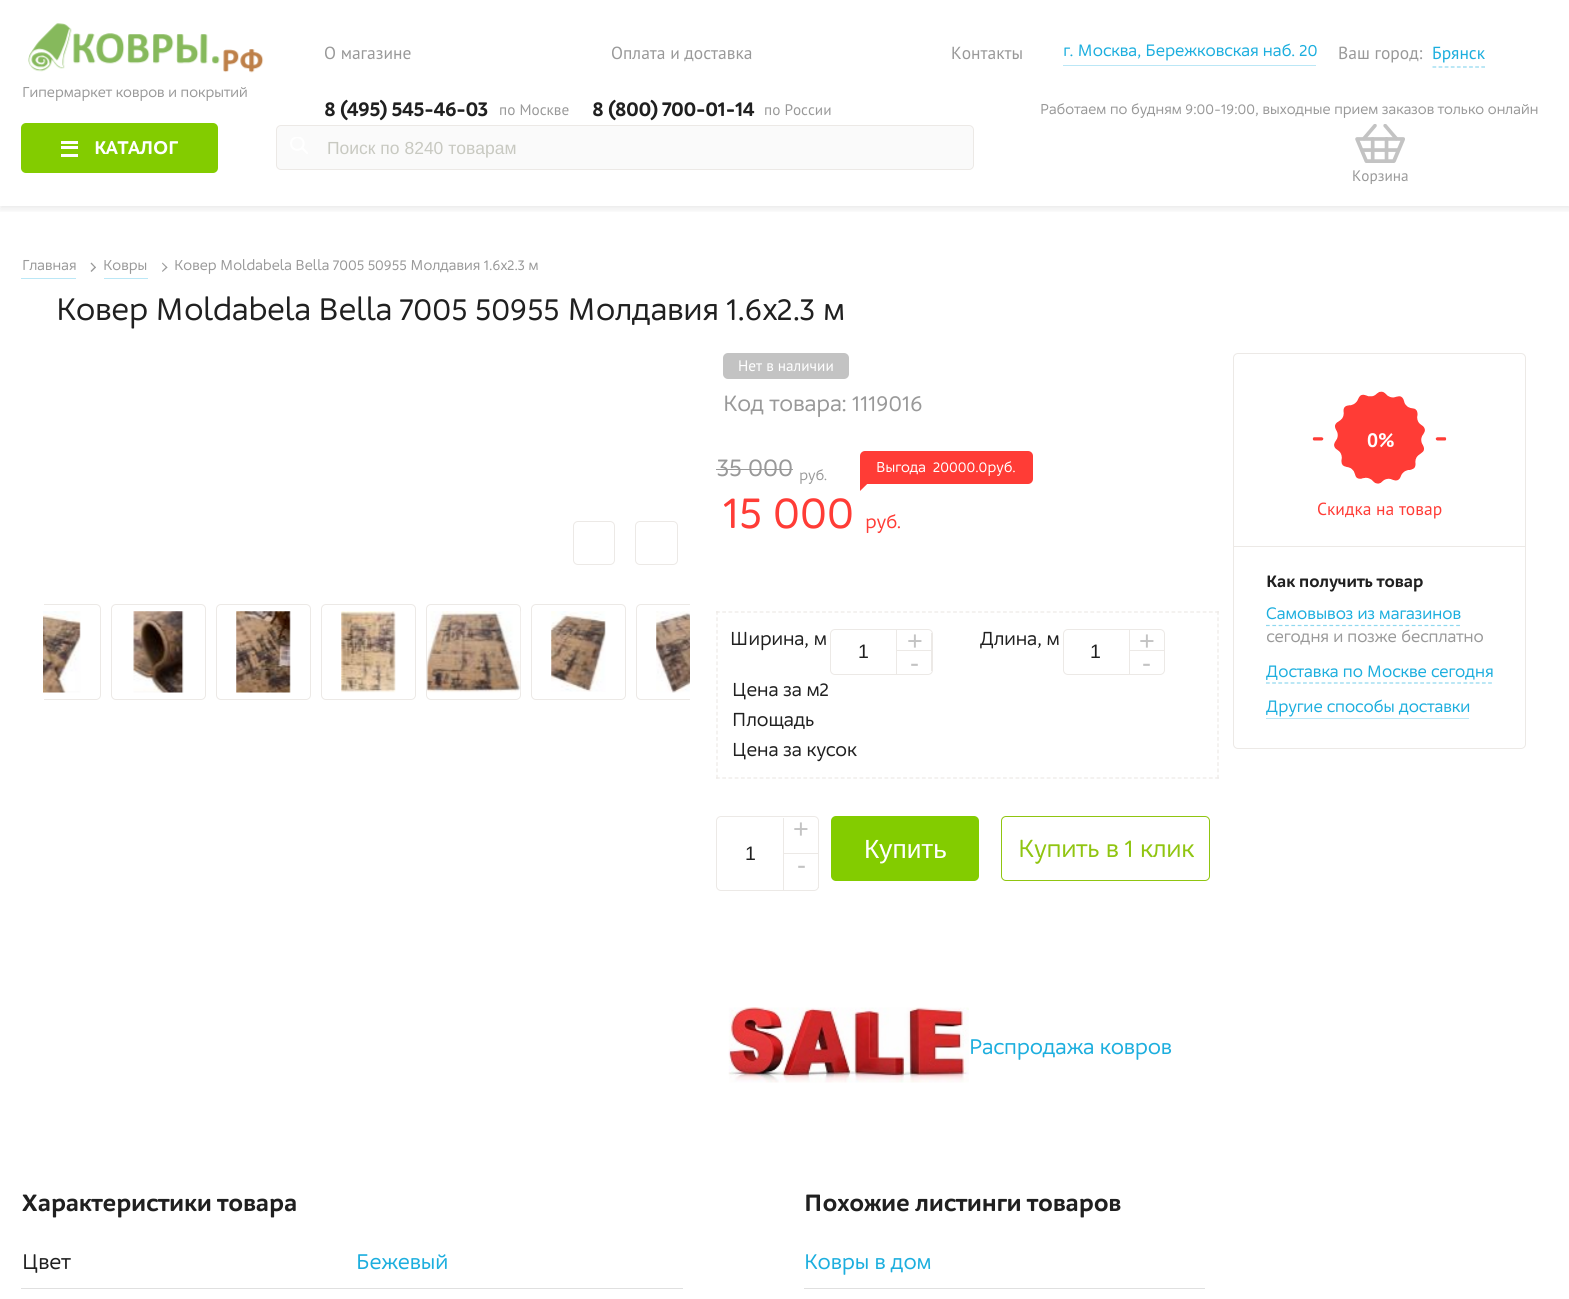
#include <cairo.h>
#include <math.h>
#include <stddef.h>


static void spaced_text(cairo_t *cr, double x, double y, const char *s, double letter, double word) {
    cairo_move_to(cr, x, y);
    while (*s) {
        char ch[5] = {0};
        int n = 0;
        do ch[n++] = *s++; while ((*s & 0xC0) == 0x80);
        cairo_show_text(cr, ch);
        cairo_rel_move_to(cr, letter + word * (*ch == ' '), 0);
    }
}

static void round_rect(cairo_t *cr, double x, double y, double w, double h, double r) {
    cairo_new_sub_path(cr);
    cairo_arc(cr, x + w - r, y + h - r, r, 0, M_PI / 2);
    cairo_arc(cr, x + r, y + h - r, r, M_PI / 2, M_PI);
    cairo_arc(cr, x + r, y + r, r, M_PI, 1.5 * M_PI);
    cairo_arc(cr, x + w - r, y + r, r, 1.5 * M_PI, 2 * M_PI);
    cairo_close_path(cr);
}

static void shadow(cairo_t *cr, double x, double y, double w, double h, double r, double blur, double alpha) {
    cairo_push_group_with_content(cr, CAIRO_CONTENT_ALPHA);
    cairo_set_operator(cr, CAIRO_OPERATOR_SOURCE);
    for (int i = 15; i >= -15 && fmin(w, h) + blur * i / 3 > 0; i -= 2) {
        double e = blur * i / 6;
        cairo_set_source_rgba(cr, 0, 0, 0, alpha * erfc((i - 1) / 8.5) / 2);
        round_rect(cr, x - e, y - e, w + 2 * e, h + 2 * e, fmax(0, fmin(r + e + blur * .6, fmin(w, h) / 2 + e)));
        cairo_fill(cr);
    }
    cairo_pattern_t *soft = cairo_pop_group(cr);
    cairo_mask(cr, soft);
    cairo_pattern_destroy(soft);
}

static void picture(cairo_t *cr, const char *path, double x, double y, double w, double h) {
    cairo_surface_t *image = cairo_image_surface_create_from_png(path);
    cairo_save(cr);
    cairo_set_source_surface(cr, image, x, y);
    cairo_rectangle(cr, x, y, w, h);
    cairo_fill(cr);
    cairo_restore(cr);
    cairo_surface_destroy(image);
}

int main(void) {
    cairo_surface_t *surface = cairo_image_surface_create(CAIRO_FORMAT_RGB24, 1569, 1299);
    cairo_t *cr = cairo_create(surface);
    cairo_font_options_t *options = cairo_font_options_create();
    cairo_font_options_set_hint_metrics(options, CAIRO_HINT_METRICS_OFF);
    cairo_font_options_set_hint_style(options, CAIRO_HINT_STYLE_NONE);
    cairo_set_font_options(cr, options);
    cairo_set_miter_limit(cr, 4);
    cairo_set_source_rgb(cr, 1, 1, 1);
    cairo_paint(cr);
    cairo_save(cr);
    cairo_rectangle(cr, 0, 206, 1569, 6);
    cairo_clip(cr);
    cairo_set_source_rgb(cr, 0.125, 0.125, 0.125);
    shadow(cr, 0, 3, 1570, 206, 0, 4, 0.1);
    cairo_restore(cr);
    picture(cr, "img1.png", 28, 23, 236, 50);
    cairo_select_font_face(cr, "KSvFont", CAIRO_FONT_SLANT_NORMAL, CAIRO_FONT_WEIGHT_NORMAL);
    cairo_set_font_size(cr, 15.25);
    cairo_set_source_rgb(cr, 0.6, 0.6, 0.6);
    cairo_move_to(cr, 22, 97);
    cairo_show_text(cr, "Гипермаркет ковров и покрытий");
    cairo_select_font_face(cr, "PT Sans", CAIRO_FONT_SLANT_NORMAL, CAIRO_FONT_WEIGHT_NORMAL);
    cairo_set_font_size(cr, 17.5);
    cairo_move_to(cr, 324, 59);
    cairo_show_text(cr, "О магазине");
    cairo_move_to(cr, 611, 59);
    cairo_show_text(cr, "Оплата и доставка");
    cairo_move_to(cr, 951, 59);
    cairo_show_text(cr, "Контакты");
    cairo_set_source_rgb(cr, 0.733, 0.906, 0.961);
    cairo_rectangle(cr, 1063, 65, 253, 1);
    cairo_fill(cr);
    cairo_select_font_face(cr, "KSvFont", CAIRO_FONT_SLANT_NORMAL, CAIRO_FONT_WEIGHT_NORMAL);
    cairo_set_source_rgb(cr, 0.11, 0.682, 0.871);
    cairo_move_to(cr, 1063, 56);
    cairo_show_text(cr, "г. Москва, Бережковская наб. 20");
    cairo_select_font_face(cr, "PT Sans", CAIRO_FONT_SLANT_NORMAL, CAIRO_FONT_WEIGHT_NORMAL);
    cairo_set_source_rgb(cr, 0.6, 0.6, 0.6);
    cairo_move_to(cr, 1338, 59);
    cairo_show_text(cr, "Ваш город:");
    cairo_set_source_rgb(cr, 0.11, 0.682, 0.871);
    cairo_move_to(cr, 1432, 59);
    cairo_show_text(cr, "Брянск");
    cairo_new_path(cr);
    cairo_move_to(cr, 1432.5, 67);
    cairo_line_to(cr, 1485, 67);
    cairo_set_source_rgb(cr, 0.557, 0.843, 0.937);
    cairo_set_line_width(cr, 1.2);
    cairo_set_dash(cr, (double[]){3.75, 2.35}, 2, 0);
    cairo_stroke(cr);
    cairo_select_font_face(cr, "KSvFont", CAIRO_FONT_SLANT_NORMAL, CAIRO_FONT_WEIGHT_BOLD);
    cairo_set_font_size(cr, 21.75);
    cairo_set_source_rgb(cr, 0.125, 0.125, 0.125);
    spaced_text(cr, 324, 116, "8 (495) 545-46-03", -0.5, 0);
    cairo_select_font_face(cr, "PT Sans", CAIRO_FONT_SLANT_NORMAL, CAIRO_FONT_WEIGHT_NORMAL);
    cairo_set_font_size(cr, 15.25);
    cairo_set_source_rgb(cr, 0.6, 0.6, 0.6);
    cairo_move_to(cr, 499, 115);
    cairo_show_text(cr, "по Москве");
    cairo_select_font_face(cr, "KSvFont", CAIRO_FONT_SLANT_NORMAL, CAIRO_FONT_WEIGHT_BOLD);
    cairo_set_font_size(cr, 21.75);
    cairo_set_source_rgb(cr, 0.125, 0.125, 0.125);
    spaced_text(cr, 592, 116, "8 (800) 700-01-14", -0.5, 0);
    cairo_select_font_face(cr, "PT Sans", CAIRO_FONT_SLANT_NORMAL, CAIRO_FONT_WEIGHT_NORMAL);
    cairo_set_font_size(cr, 15.25);
    cairo_set_source_rgb(cr, 0.6, 0.6, 0.6);
    cairo_move_to(cr, 764, 115);
    cairo_show_text(cr, "по России");
    cairo_select_font_face(cr, "KSvFont", CAIRO_FONT_SLANT_NORMAL, CAIRO_FONT_WEIGHT_NORMAL);
    cairo_move_to(cr, 1040, 114);
    cairo_show_text(cr, "Работаем по будням 9:00-19:00, выходные прием заказов только онлайн");
    cairo_set_source_rgb(cr, 0.514, 0.8, 0);
    round_rect(cr, 21, 123, 197, 50, 5);
    cairo_fill(cr);
    cairo_set_source_rgb(cr, 1, 1, 1);
    cairo_rectangle(cr, 61, 141, 17, 3);
    cairo_fill(cr);
    cairo_rectangle(cr, 61, 146, 17, 3);
    cairo_fill(cr);
    cairo_rectangle(cr, 61, 154, 17, 3);
    cairo_fill(cr);
    cairo_select_font_face(cr, "KSvFont", CAIRO_FONT_SLANT_NORMAL, CAIRO_FONT_WEIGHT_BOLD);
    cairo_set_font_size(cr, 19.5);
    cairo_move_to(cr, 94, 154);
    cairo_show_text(cr, "КАТАЛОГ");
    cairo_set_source_rgb(cr, 0.98, 0.98, 0.98);
    round_rect(cr, 276.5, 125.5, 697, 44, 4.5);
    cairo_fill_preserve(cr);
    cairo_set_source_rgb(cr, 0.925, 0.914, 0.902);
    cairo_set_line_width(cr, 1);
    cairo_set_dash(cr, NULL, 0, 0);
    cairo_stroke(cr);
    picture(cr, "img2.png", 290, 137, 18, 17);
    cairo_select_font_face(cr, "Liberation Sans", CAIRO_FONT_SLANT_NORMAL, CAIRO_FONT_WEIGHT_NORMAL);
    cairo_set_font_size(cr, 17.5);
    cairo_set_source_rgb(cr, 0.784, 0.788, 0.757);
    cairo_move_to(cr, 327, 154);
    cairo_show_text(cr, "Поиск по 8240 товарам");
    picture(cr, "img3.png", 1355, 124, 50, 39);
    cairo_select_font_face(cr, "PT Sans", CAIRO_FONT_SLANT_NORMAL, CAIRO_FONT_WEIGHT_NORMAL);
    cairo_set_font_size(cr, 15.25);
    cairo_set_source_rgb(cr, 0.6, 0.6, 0.6);
    cairo_move_to(cr, 1352, 181);
    cairo_show_text(cr, "Корзина");
    cairo_set_source_rgb(cr, 0.733, 0.906, 0.961);
    cairo_rectangle(cr, 21, 278, 55, 1);
    cairo_fill(cr);
    cairo_select_font_face(cr, "KSvFont", CAIRO_FONT_SLANT_NORMAL, CAIRO_FONT_WEIGHT_NORMAL);
    cairo_set_source_rgb(cr, 0.6, 0.6, 0.6);
    cairo_move_to(cr, 22, 270);
    cairo_show_text(cr, "Главная");
    cairo_new_path(cr);
    cairo_move_to(cr, 91.5, 262.5);
    cairo_line_to(cr, 96, 267.5);
    cairo_line_to(cr, 95, 268);
    cairo_line_to(cr, 90.5, 263.5);
    cairo_close_path(cr);
    cairo_fill(cr);
    cairo_new_path(cr);
    cairo_move_to(cr, 95, 266.5);
    cairo_line_to(cr, 96, 267.5);
    cairo_line_to(cr, 91.5, 272);
    cairo_line_to(cr, 90.5, 271);
    cairo_close_path(cr);
    cairo_fill(cr);
    cairo_set_source_rgb(cr, 0.733, 0.906, 0.961);
    cairo_rectangle(cr, 104, 278, 44, 1);
    cairo_fill(cr);
    cairo_set_source_rgb(cr, 0.6, 0.6, 0.6);
    cairo_move_to(cr, 103, 270);
    cairo_show_text(cr, "Ковры");
    cairo_new_path(cr);
    cairo_move_to(cr, 162.5, 262.5);
    cairo_line_to(cr, 167.5, 267.5);
    cairo_line_to(cr, 166.5, 268);
    cairo_line_to(cr, 162, 263.5);
    cairo_close_path(cr);
    cairo_fill(cr);
    cairo_new_path(cr);
    cairo_move_to(cr, 166.5, 266.5);
    cairo_line_to(cr, 167.5, 267.5);
    cairo_line_to(cr, 162.5, 272);
    cairo_line_to(cr, 162, 271);
    cairo_close_path(cr);
    cairo_fill(cr);
    cairo_move_to(cr, 174, 270);
    cairo_show_text(cr, "Ковер Moldabela Bella 7005 50955 Молдавия 1.6x2.3 м");
    cairo_set_font_size(cr, 33);
    cairo_set_source_rgb(cr, 0.125, 0.125, 0.125);
    cairo_move_to(cr, 56, 320);
    cairo_show_text(cr, "Ковер Moldabela Bella 7005 50955 Молдавия 1.6x2.3 м");
    round_rect(cr, 573.5, 521.5, 41, 43, 4.5);
    cairo_set_source_rgb(cr, 0.925, 0.914, 0.902);
    cairo_stroke(cr);
    round_rect(cr, 635.5, 521.5, 42, 43, 4.5);
    cairo_stroke(cr);
    cairo_save(cr);
    cairo_rectangle(cr, 44, 603, 646, 98);
    cairo_clip(cr);
    round_rect(cr, 6.5, 604.5, 94, 95, 4.5);
    cairo_stroke(cr);
    cairo_restore(cr);
    picture(cr, "img4.png", 43, 611, 38, 82);
    round_rect(cr, 111.5, 604.5, 94, 95, 4.5);
    cairo_stroke(cr);
    picture(cr, "img5.png", 133, 611, 51, 82);
    round_rect(cr, 216.5, 604.5, 94, 95, 4.5);
    cairo_stroke(cr);
    picture(cr, "img6.png", 236, 611, 55, 82);
    round_rect(cr, 321.5, 604.5, 94, 95, 4.5);
    cairo_stroke(cr);
    picture(cr, "img7.png", 341, 611, 55, 82);
    round_rect(cr, 426.5, 604.5, 94, 95, 4.5);
    cairo_stroke(cr);
    picture(cr, "img8.png", 427, 611, 94, 82);
    round_rect(cr, 531.5, 604.5, 94, 95, 4.5);
    cairo_stroke(cr);
    picture(cr, "img9.png", 551, 611, 55, 81);
    cairo_new_path(cr);
    cairo_move_to(cr, 716, 612);
    cairo_line_to(cr, 1219, 612);
    cairo_set_line_width(cr, 1.2);
    cairo_set_dash(cr, (double[]){3.75, 2.49}, 2, 0);
    cairo_stroke(cr);
    cairo_new_path(cr);
    cairo_move_to(cr, 1218, 611);
    cairo_line_to(cr, 1218, 779);
    cairo_set_dash(cr, (double[]){3.75, 2.55}, 2, 0);
    cairo_stroke(cr);
    cairo_new_path(cr);
    cairo_move_to(cr, 716, 778);
    cairo_line_to(cr, 1219, 778);
    cairo_set_dash(cr, (double[]){3.75, 2.49}, 2, 0);
    cairo_stroke(cr);
    cairo_new_path(cr);
    cairo_move_to(cr, 717, 611);
    cairo_line_to(cr, 717, 779);
    cairo_set_dash(cr, (double[]){3.75, 2.55}, 2, 0);
    cairo_stroke(cr);
    cairo_save(cr);
    cairo_rectangle(cr, 44, 603, 646, 98);
    cairo_clip(cr);
    round_rect(cr, 636.5, 604.5, 94, 95, 4.5);
    cairo_set_line_width(cr, 1);
    cairo_set_dash(cr, NULL, 0, 0);
    cairo_stroke(cr);
    cairo_restore(cr);
    picture(cr, "img10.png", 656, 611, 34, 82);
    cairo_set_source_rgb(cr, 0.765, 0.765, 0.765);
    round_rect(cr, 723, 353, 126, 26, 5);
    cairo_fill(cr);
    cairo_select_font_face(cr, "PT Sans", CAIRO_FONT_SLANT_NORMAL, CAIRO_FONT_WEIGHT_NORMAL);
    cairo_set_font_size(cr, 15.25);
    cairo_set_source_rgb(cr, 1, 1, 1);
    cairo_move_to(cr, 738, 371);
    cairo_show_text(cr, "Нет в наличии");
    cairo_select_font_face(cr, "KSvFont", CAIRO_FONT_SLANT_NORMAL, CAIRO_FONT_WEIGHT_NORMAL);
    cairo_set_font_size(cr, 23.5);
    cairo_set_source_rgb(cr, 0.6, 0.6, 0.6);
    cairo_move_to(cr, 723, 411);
    cairo_show_text(cr, "Код товара: 1119016");
    cairo_set_font_size(cr, 26.25);
    cairo_move_to(cr, 717, 476);
    cairo_show_text(cr, "35 000");
    cairo_rectangle(cr, 716, 469, 77, 1);
    cairo_fill(cr);
    cairo_set_font_size(cr, 15.25);
    cairo_move_to(cr, 799, 480);
    cairo_show_text(cr, "руб.");
    cairo_set_source_rgb(cr, 1, 0.235, 0.212);
    cairo_new_path(cr);
    cairo_move_to(cr, 860, 472.5);
    cairo_line_to(cr, 879, 472.5);
    cairo_line_to(cr, 860, 491);
    cairo_close_path(cr);
    cairo_fill(cr);
    round_rect(cr, 860, 451, 173, 33, 5);
    cairo_fill(cr);
    cairo_set_source_rgb(cr, 1, 1, 1);
    cairo_move_to(cr, 876, 472);
    cairo_show_text(cr, "Выгода");
    cairo_move_to(cr, 933, 472);
    cairo_show_text(cr, "20000.0руб.");
    cairo_set_font_size(cr, 47);
    cairo_set_source_rgb(cr, 1, 0.235, 0.212);
    cairo_move_to(cr, 723, 528);
    cairo_show_text(cr, "15 000");
    cairo_set_font_size(cr, 19.5);
    cairo_move_to(cr, 865, 528);
    cairo_show_text(cr, "руб.");
    cairo_set_font_size(cr, 20);
    cairo_set_source_rgb(cr, 0.125, 0.125, 0.125);
    cairo_move_to(cr, 730, 645);
    cairo_show_text(cr, "Ширина, м");
    round_rect(cr, 830.5, 629.5, 102, 45, 4.5);
    cairo_set_source_rgb(cr, 0.925, 0.914, 0.902);
    cairo_set_line_width(cr, 1);
    cairo_set_dash(cr, NULL, 0, 0);
    cairo_stroke(cr);
    cairo_rectangle(cr, 931, 633, 1, 38);
    cairo_fill(cr);
    cairo_rectangle(cr, 896, 650, 37, 1);
    cairo_fill(cr);
    cairo_rectangle(cr, 896, 630, 1, 44);
    cairo_fill(cr);
    cairo_select_font_face(cr, "Liberation Sans", CAIRO_FONT_SLANT_NORMAL, CAIRO_FONT_WEIGHT_NORMAL);
    cairo_set_font_size(cr, 27);
    cairo_set_source_rgb(cr, 0.765, 0.765, 0.765);
    cairo_move_to(cr, 907, 650);
    cairo_show_text(cr, "+");
    cairo_set_font_size(cr, 19.5);
    cairo_set_source_rgb(cr, 0.125, 0.125, 0.125);
    cairo_move_to(cr, 858, 658);
    cairo_show_text(cr, "1");
    cairo_set_font_size(cr, 27);
    cairo_set_source_rgb(cr, 0.765, 0.765, 0.765);
    cairo_move_to(cr, 910, 672);
    cairo_show_text(cr, "-");
    cairo_select_font_face(cr, "KSvFont", CAIRO_FONT_SLANT_NORMAL, CAIRO_FONT_WEIGHT_NORMAL);
    cairo_set_font_size(cr, 20);
    cairo_set_source_rgb(cr, 0.125, 0.125, 0.125);
    cairo_move_to(cr, 980, 645);
    cairo_show_text(cr, "Длина, м");
    round_rect(cr, 1063.5, 629.5, 101, 45, 4.5);
    cairo_set_source_rgb(cr, 0.925, 0.914, 0.902);
    cairo_stroke(cr);
    cairo_rectangle(cr, 1129, 650, 36, 1);
    cairo_fill(cr);
    cairo_rectangle(cr, 1129, 630, 1, 44);
    cairo_fill(cr);
    cairo_select_font_face(cr, "Liberation Sans", CAIRO_FONT_SLANT_NORMAL, CAIRO_FONT_WEIGHT_NORMAL);
    cairo_set_font_size(cr, 27);
    cairo_set_source_rgb(cr, 0.765, 0.765, 0.765);
    cairo_move_to(cr, 1139, 650);
    cairo_show_text(cr, "+");
    cairo_set_font_size(cr, 19.5);
    cairo_set_source_rgb(cr, 0.125, 0.125, 0.125);
    cairo_move_to(cr, 1090, 658);
    cairo_show_text(cr, "1");
    cairo_set_font_size(cr, 27);
    cairo_set_source_rgb(cr, 0.765, 0.765, 0.765);
    cairo_move_to(cr, 1142, 672);
    cairo_show_text(cr, "-");
    cairo_select_font_face(cr, "KSvFont", CAIRO_FONT_SLANT_NORMAL, CAIRO_FONT_WEIGHT_NORMAL);
    cairo_set_font_size(cr, 20);
    cairo_set_source_rgb(cr, 0.125, 0.125, 0.125);
    cairo_move_to(cr, 732, 696);
    cairo_show_text(cr, "Цена за м2");
    cairo_move_to(cr, 732, 726);
    cairo_show_text(cr, "Площадь");
    cairo_move_to(cr, 732, 756);
    cairo_show_text(cr, "Цена за кусок");
    round_rect(cr, 716.5, 816.5, 102, 74, 4.5);
    cairo_set_source_rgb(cr, 0.925, 0.914, 0.902);
    cairo_stroke(cr);
    cairo_rectangle(cr, 783, 853, 36, 1);
    cairo_fill(cr);
    cairo_rectangle(cr, 783, 818, 1, 72);
    cairo_fill(cr);
    cairo_select_font_face(cr, "Liberation Sans", CAIRO_FONT_SLANT_NORMAL, CAIRO_FONT_WEIGHT_NORMAL);
    cairo_set_font_size(cr, 27);
    cairo_set_source_rgb(cr, 0.765, 0.765, 0.765);
    cairo_move_to(cr, 793, 838);
    cairo_show_text(cr, "+");
    cairo_set_font_size(cr, 19.5);
    cairo_set_source_rgb(cr, 0.125, 0.125, 0.125);
    cairo_move_to(cr, 745, 860);
    cairo_show_text(cr, "1");
    cairo_set_source_rgb(cr, 0.925, 0.914, 0.902);
    cairo_rectangle(cr, 818, 887, 1, 1);
    cairo_fill(cr);
    cairo_set_font_size(cr, 27);
    cairo_set_source_rgb(cr, 0.765, 0.765, 0.765);
    cairo_move_to(cr, 797, 874);
    cairo_show_text(cr, "-");
    cairo_set_source_rgb(cr, 0.514, 0.8, 0);
    round_rect(cr, 831, 816, 148, 65, 5);
    cairo_fill(cr);
    cairo_set_font_size(cr, 26.25);
    cairo_set_source_rgb(cr, 1, 1, 1);
    cairo_move_to(cr, 864, 858);
    cairo_show_text(cr, "Купить");
    round_rect(cr, 1001.5, 816.5, 208, 64, 4.5);
    cairo_set_source_rgb(cr, 0.565, 0.773, 0.067);
    cairo_stroke(cr);
    cairo_select_font_face(cr, "KSvFont", CAIRO_FONT_SLANT_NORMAL, CAIRO_FONT_WEIGHT_NORMAL);
    cairo_move_to(cr, 1018, 857);
    cairo_show_text(cr, "Купить в 1 клик");
    picture(cr, "img11.png", 728, 1007, 241, 76);
    cairo_set_font_size(cr, 22.5);
    cairo_set_source_rgb(cr, 0.11, 0.682, 0.871);
    cairo_move_to(cr, 969, 1054);
    cairo_show_text(cr, "Распродажа ковров");
    round_rect(cr, 1233.5, 353.5, 292, 395, 4.5);
    cairo_set_source_rgb(cr, 0.925, 0.914, 0.902);
    cairo_stroke(cr);
    cairo_rectangle(cr, 1234, 546, 291, 1);
    cairo_fill(cr);
    picture(cr, "img12.png", 1312, 391, 135, 93);
    cairo_select_font_face(cr, "PT Sans", CAIRO_FONT_SLANT_NORMAL, CAIRO_FONT_WEIGHT_BOLD);
    cairo_set_font_size(cr, 19.5);
    cairo_set_source_rgb(cr, 1, 1, 1);
    cairo_move_to(cr, 1367, 447);
    cairo_show_text(cr, "0%");
    cairo_select_font_face(cr, "PT Sans", CAIRO_FONT_SLANT_NORMAL, CAIRO_FONT_WEIGHT_NORMAL);
    cairo_set_font_size(cr, 17.5);
    cairo_set_source_rgb(cr, 1, 0.235, 0.212);
    cairo_move_to(cr, 1317, 515);
    cairo_show_text(cr, "Скидка на товар");
    cairo_select_font_face(cr, "KSvFont", CAIRO_FONT_SLANT_NORMAL, CAIRO_FONT_WEIGHT_BOLD);
    cairo_set_source_rgb(cr, 0.125, 0.125, 0.125);
    cairo_move_to(cr, 1266, 587);
    cairo_show_text(cr, "Как получить товар");
    cairo_select_font_face(cr, "KSvFont", CAIRO_FONT_SLANT_NORMAL, CAIRO_FONT_WEIGHT_NORMAL);
    cairo_set_source_rgb(cr, 0.11, 0.682, 0.871);
    cairo_move_to(cr, 1266, 619);
    cairo_show_text(cr, "Самовывоз из магазинов");
    cairo_new_path(cr);
    cairo_move_to(cr, 1266, 625.5);
    cairo_line_to(cr, 1460, 625.5);
    cairo_set_source_rgb(cr, 0.557, 0.843, 0.937);
    cairo_set_line_width(cr, 1.2);
    cairo_set_dash(cr, (double[]){3.75, 2.59}, 2, 0);
    cairo_stroke(cr);
    cairo_set_source_rgb(cr, 0.6, 0.6, 0.6);
    cairo_move_to(cr, 1266, 642);
    cairo_show_text(cr, "сегодня и позже бесплатно");
    cairo_set_source_rgb(cr, 0.11, 0.682, 0.871);
    cairo_move_to(cr, 1266, 677);
    cairo_show_text(cr, "Доставка по Москве сегодня");
    cairo_new_path(cr);
    cairo_move_to(cr, 1266, 683);
    cairo_line_to(cr, 1492.5, 683);
    cairo_set_source_rgb(cr, 0.557, 0.843, 0.937);
    cairo_set_dash(cr, (double[]){3.75, 2.42}, 2, 0);
    cairo_stroke(cr);
    cairo_set_source_rgb(cr, 0.11, 0.682, 0.871);
    cairo_move_to(cr, 1266, 712);
    cairo_show_text(cr, "Другие способы доставки");
    cairo_set_source_rgb(cr, 0.733, 0.906, 0.961);
    cairo_rectangle(cr, 1266, 718, 203, 1);
    cairo_fill(cr);
    cairo_select_font_face(cr, "KSvFont", CAIRO_FONT_SLANT_NORMAL, CAIRO_FONT_WEIGHT_BOLD);
    cairo_set_font_size(cr, 25);
    cairo_set_source_rgb(cr, 0.125, 0.125, 0.125);
    cairo_move_to(cr, 22, 1211);
    cairo_show_text(cr, "Характеристики товара");
    cairo_set_source_rgb(cr, 0.878, 0.878, 0.878);
    cairo_rectangle(cr, 21, 1288, 662, 1);
    cairo_fill(cr);
    cairo_select_font_face(cr, "KSvFont", CAIRO_FONT_SLANT_NORMAL, CAIRO_FONT_WEIGHT_NORMAL);
    cairo_set_font_size(cr, 22.5);
    cairo_set_source_rgb(cr, 0.125, 0.125, 0.125);
    cairo_move_to(cr, 22, 1269);
    cairo_show_text(cr, "Цвет");
    cairo_set_source_rgb(cr, 0.11, 0.682, 0.871);
    cairo_move_to(cr, 356, 1269);
    cairo_show_text(cr, "Бежевый");
    cairo_select_font_face(cr, "KSvFont", CAIRO_FONT_SLANT_NORMAL, CAIRO_FONT_WEIGHT_BOLD);
    cairo_set_font_size(cr, 25);
    cairo_set_source_rgb(cr, 0.125, 0.125, 0.125);
    cairo_move_to(cr, 804, 1211);
    cairo_show_text(cr, "Похожие листинги товаров");
    cairo_set_source_rgb(cr, 0.878, 0.878, 0.878);
    cairo_rectangle(cr, 804, 1288, 401, 1);
    cairo_fill(cr);
    cairo_select_font_face(cr, "KSvFont", CAIRO_FONT_SLANT_NORMAL, CAIRO_FONT_WEIGHT_NORMAL);
    cairo_set_font_size(cr, 22.5);
    cairo_set_source_rgb(cr, 0.11, 0.682, 0.871);
    cairo_move_to(cr, 804, 1269);
    cairo_show_text(cr, "Ковры в дом");
    cairo_surface_write_to_png(surface, "page.png");
    cairo_font_options_destroy(options);
    cairo_destroy(cr);
    cairo_surface_destroy(surface);
    return 0;
}
